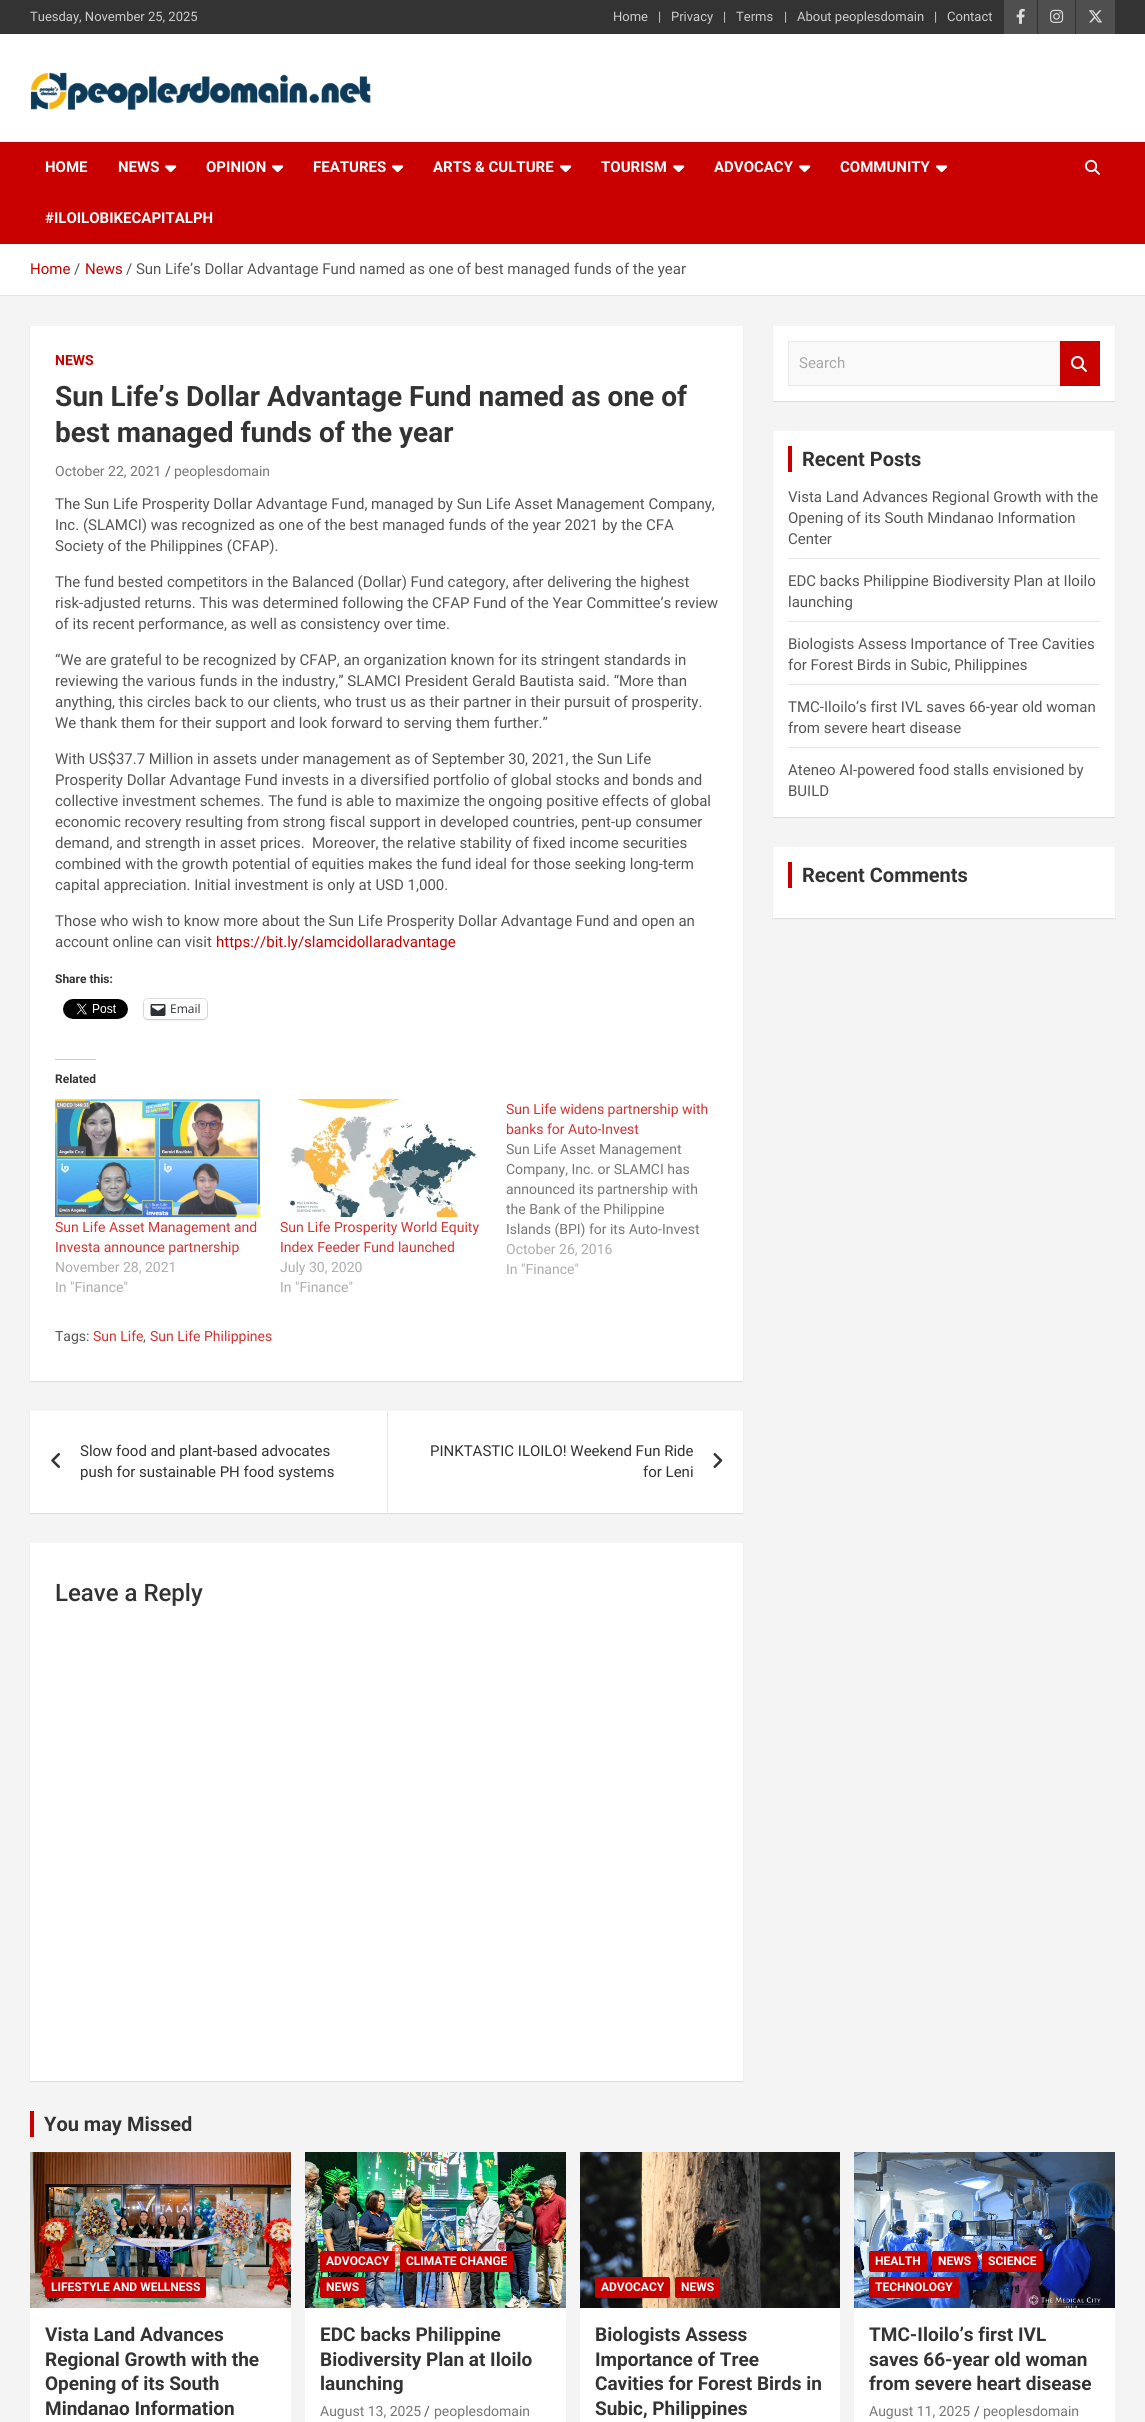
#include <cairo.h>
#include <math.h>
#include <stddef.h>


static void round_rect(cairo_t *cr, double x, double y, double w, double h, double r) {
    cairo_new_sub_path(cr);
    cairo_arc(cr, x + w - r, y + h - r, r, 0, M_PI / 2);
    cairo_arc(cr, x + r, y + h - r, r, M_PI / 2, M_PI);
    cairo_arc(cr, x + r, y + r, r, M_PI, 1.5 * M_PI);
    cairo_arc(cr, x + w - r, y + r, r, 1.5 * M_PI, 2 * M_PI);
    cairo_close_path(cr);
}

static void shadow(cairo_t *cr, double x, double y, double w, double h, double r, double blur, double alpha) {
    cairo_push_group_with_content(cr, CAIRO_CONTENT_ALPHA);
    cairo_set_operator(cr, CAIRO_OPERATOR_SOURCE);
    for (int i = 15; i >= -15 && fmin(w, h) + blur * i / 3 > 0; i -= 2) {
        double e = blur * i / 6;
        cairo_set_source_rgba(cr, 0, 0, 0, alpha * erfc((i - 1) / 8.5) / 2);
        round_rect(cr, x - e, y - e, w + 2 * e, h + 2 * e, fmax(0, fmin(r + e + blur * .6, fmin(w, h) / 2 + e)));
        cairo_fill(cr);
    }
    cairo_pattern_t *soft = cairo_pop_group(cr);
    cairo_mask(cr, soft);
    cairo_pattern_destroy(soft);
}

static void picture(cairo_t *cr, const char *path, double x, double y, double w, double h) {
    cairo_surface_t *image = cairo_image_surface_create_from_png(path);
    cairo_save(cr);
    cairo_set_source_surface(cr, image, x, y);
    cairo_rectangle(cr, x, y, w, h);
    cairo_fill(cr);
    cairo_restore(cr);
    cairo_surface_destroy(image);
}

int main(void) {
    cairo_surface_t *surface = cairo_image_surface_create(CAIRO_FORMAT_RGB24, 1145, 2422);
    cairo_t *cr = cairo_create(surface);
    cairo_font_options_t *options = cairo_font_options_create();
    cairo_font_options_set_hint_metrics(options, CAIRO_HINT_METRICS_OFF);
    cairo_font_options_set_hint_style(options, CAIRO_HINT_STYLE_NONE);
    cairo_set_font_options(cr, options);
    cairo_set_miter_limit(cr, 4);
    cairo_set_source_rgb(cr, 0.957, 0.957, 0.957);
    cairo_paint(cr);
    cairo_set_source_rgb(cr, 0.2, 0.2, 0.2);
    cairo_rectangle(cr, 0, 0, 1145, 34);
    cairo_fill(cr);
    cairo_select_font_face(cr, "Roboto", CAIRO_FONT_SLANT_NORMAL, CAIRO_FONT_WEIGHT_NORMAL);
    cairo_set_font_size(cr, 13);
    cairo_set_source_rgb(cr, 0.8, 0.8, 0.8);
    cairo_move_to(cr, 30, 21);
    cairo_show_text(cr, "Tuesday, November 25, 2025");
    cairo_move_to(cr, 613, 21);
    cairo_show_text(cr, "Home");
    cairo_move_to(cr, 658, 21);
    cairo_show_text(cr, "|");
    cairo_move_to(cr, 671, 21);
    cairo_show_text(cr, "Privacy");
    cairo_move_to(cr, 723, 21);
    cairo_show_text(cr, "|");
    cairo_move_to(cr, 736, 21);
    cairo_show_text(cr, "Terms");
    cairo_move_to(cr, 784, 21);
    cairo_show_text(cr, "|");
    cairo_move_to(cr, 797, 21);
    cairo_show_text(cr, "About peoplesdomain");
    cairo_move_to(cr, 934, 21);
    cairo_show_text(cr, "|");
    cairo_move_to(cr, 947, 21);
    cairo_show_text(cr, "Contact");
    cairo_set_source_rgb(cr, 0.31, 0.31, 0.31);
    cairo_rectangle(cr, 1004, 0, 33, 34);
    cairo_fill(cr);
    picture(cr, "img1.png", 1016, 8, 9, 16);
    cairo_rectangle(cr, 1038, 0, 37, 34);
    cairo_fill(cr);
    picture(cr, "img2.png", 1050, 9, 14, 14);
    cairo_rectangle(cr, 1076, 0, 39, 34);
    cairo_fill(cr);
    picture(cr, "img3.png", 1088, 10, 15, 13);
    cairo_set_source_rgb(cr, 1, 1, 1);
    cairo_rectangle(cr, 0, 34, 1145, 108);
    cairo_fill(cr);
    picture(cr, "img4.png", 30, 72, 341, 38);
    cairo_set_source_rgb(cr, 0.784, 0, 0);
    cairo_rectangle(cr, 0, 142, 1145, 102);
    cairo_fill(cr);
    cairo_select_font_face(cr, "Roboto", CAIRO_FONT_SLANT_NORMAL, CAIRO_FONT_WEIGHT_BOLD);
    cairo_set_font_size(cr, 15);
    cairo_set_source_rgb(cr, 1, 1, 1);
    cairo_move_to(cr, 45, 172);
    cairo_show_text(cr, "HOME");
    cairo_move_to(cr, 118, 172);
    cairo_show_text(cr, "NEWS");
    picture(cr, "img5.png", 165, 165, 12, 8);
    cairo_move_to(cr, 206, 172);
    cairo_show_text(cr, "OPINION");
    picture(cr, "img5.png", 272, 165, 12, 8);
    cairo_move_to(cr, 313, 172);
    cairo_show_text(cr, "FEATURES");
    picture(cr, "img5.png", 392, 165, 12, 8);
    cairo_move_to(cr, 433, 172);
    cairo_show_text(cr, "ARTS & CULTURE");
    picture(cr, "img5.png", 560, 165, 12, 8);
    cairo_move_to(cr, 601, 172);
    cairo_show_text(cr, "TOURISM");
    picture(cr, "img5.png", 673, 165, 12, 8);
    cairo_move_to(cr, 714, 172);
    cairo_show_text(cr, "ADVOCACY");
    picture(cr, "img5.png", 799, 165, 12, 8);
    cairo_move_to(cr, 840, 172);
    cairo_show_text(cr, "COMMUNITY");
    picture(cr, "img5.png", 936, 165, 12, 8);
    cairo_move_to(cr, 45, 223);
    cairo_show_text(cr, "#ILOILOBIKECAPITALPH");
    picture(cr, "img6.png", 1085, 159, 15, 16);
    cairo_rectangle(cr, 0, 244, 1145, 51);
    cairo_fill(cr);
    cairo_set_source_rgb(cr, 0.902, 0.902, 0.902);
    cairo_rectangle(cr, 0, 295, 1145, 1);
    cairo_fill(cr);
    cairo_select_font_face(cr, "Roboto", CAIRO_FONT_SLANT_NORMAL, CAIRO_FONT_WEIGHT_NORMAL);
    cairo_set_source_rgb(cr, 0.784, 0, 0);
    cairo_move_to(cr, 30, 274);
    cairo_show_text(cr, "Home");
    cairo_set_source_rgb(cr, 0.333, 0.333, 0.333);
    cairo_move_to(cr, 74, 274);
    cairo_show_text(cr, "/");
    cairo_set_source_rgb(cr, 0.784, 0, 0);
    cairo_move_to(cr, 85, 274);
    cairo_show_text(cr, "News");
    cairo_set_source_rgb(cr, 0.333, 0.333, 0.333);
    cairo_move_to(cr, 126, 274);
    cairo_show_text(cr, "/ Sun Life’s Dollar Advantage Fund named as one of best managed funds of the year");
    cairo_set_source_rgb(cr, 0, 0, 0);
    shadow(cr, 30, 327, 713, 1055, 0, 0.5, 0.1);
    cairo_set_source_rgb(cr, 1, 1, 1);
    cairo_rectangle(cr, 30, 326, 713, 1055);
    cairo_fill(cr);
    cairo_select_font_face(cr, "Roboto", CAIRO_FONT_SLANT_NORMAL, CAIRO_FONT_WEIGHT_BOLD);
    cairo_set_font_size(cr, 14);
    cairo_set_source_rgb(cr, 0.784, 0, 0);
    cairo_move_to(cr, 55, 365);
    cairo_show_text(cr, "NEWS");
    cairo_set_font_size(cr, 28);
    cairo_set_source_rgb(cr, 0.2, 0.2, 0.2);
    cairo_move_to(cr, 55, 406);
    cairo_show_text(cr, "Sun Life’s Dollar Advantage Fund named as one of");
    cairo_move_to(cr, 55, 442);
    cairo_show_text(cr, "best managed funds of the year");
    cairo_select_font_face(cr, "Roboto", CAIRO_FONT_SLANT_NORMAL, CAIRO_FONT_WEIGHT_NORMAL);
    cairo_set_font_size(cr, 14);
    cairo_set_source_rgb(cr, 0.467, 0.467, 0.467);
    cairo_move_to(cr, 55, 476);
    cairo_show_text(cr, "October 22, 2021");
    cairo_set_source_rgb(cr, 0.333, 0.333, 0.333);
    cairo_move_to(cr, 165, 476);
    cairo_show_text(cr, "/");
    cairo_set_source_rgb(cr, 0.467, 0.467, 0.467);
    cairo_move_to(cr, 174, 476);
    cairo_show_text(cr, "peoplesdomain");
    cairo_set_font_size(cr, 15);
    cairo_set_source_rgb(cr, 0.333, 0.333, 0.333);
    cairo_move_to(cr, 55, 509);
    cairo_show_text(cr, "The Sun Life Prosperity Dollar Advantage Fund, managed by Sun Life Asset Management Company,");
    cairo_move_to(cr, 55, 530);
    cairo_show_text(cr, "Inc. (SLAMCI) was recognized as one of the best managed funds of the year 2021 by the CFA");
    cairo_move_to(cr, 55, 551);
    cairo_show_text(cr, "Society of the Philippines (CFAP).");
    cairo_move_to(cr, 55, 587);
    cairo_show_text(cr, "The fund bested competitors in the Balanced (Dollar) Fund category, after delivering the highest");
    cairo_move_to(cr, 55, 608);
    cairo_show_text(cr, "risk-adjusted returns. This was determined following the CFAP Fund of the Year Committee’s review");
    cairo_move_to(cr, 55, 629);
    cairo_show_text(cr, "of its recent performance, as well as consistency over time.");
    cairo_move_to(cr, 55, 665);
    cairo_show_text(cr, "“We are grateful to be recognized by CFAP, an organization known for its stringent standards in");
    cairo_move_to(cr, 55, 686);
    cairo_show_text(cr, "reviewing the various funds in the industry,” SLAMCI President Gerald Bautista said. “More than");
    cairo_move_to(cr, 55, 707);
    cairo_show_text(cr, "anything, this circles back to our clients, who trust us as their partner in their pursuit of prosperity.");
    cairo_move_to(cr, 55, 728);
    cairo_show_text(cr, "We thank them for their support and look forward to serving them further.”");
    cairo_move_to(cr, 55, 764);
    cairo_show_text(cr, "With US$37.7 Million in assets under management as of September 30, 2021, the Sun Life");
    cairo_move_to(cr, 55, 785);
    cairo_show_text(cr, "Prosperity Dollar Advantage Fund invests in a diversified portfolio of global stocks and bonds and");
    cairo_move_to(cr, 55, 806);
    cairo_show_text(cr, "collective investment schemes. The fund is able to maximize the ongoing positive effects of global");
    cairo_move_to(cr, 55, 827);
    cairo_show_text(cr, "economic recovery resulting from strong fiscal support in developed countries, pent-up consumer");
    cairo_move_to(cr, 55, 848);
    cairo_show_text(cr, "demand, and strength in asset prices.  Moreover, the relative stability of fixed income securities");
    cairo_move_to(cr, 55, 869);
    cairo_show_text(cr, "combined with the growth potential of equities makes the fund ideal for those seeking long-term");
    cairo_move_to(cr, 55, 890);
    cairo_show_text(cr, "capital appreciation. Initial investment is only at USD 1,000.");
    cairo_move_to(cr, 55, 926);
    cairo_show_text(cr, "Those who wish to know more about the Sun Life Prosperity Dollar Advantage Fund and open an");
    cairo_move_to(cr, 55, 947);
    cairo_show_text(cr, "account online can visit");
    cairo_set_source_rgb(cr, 0.784, 0, 0);
    cairo_move_to(cr, 216, 947);
    cairo_show_text(cr, "https://bit.ly/slamcidollaradvantage");
    cairo_select_font_face(cr, "Roboto", CAIRO_FONT_SLANT_NORMAL, CAIRO_FONT_WEIGHT_BOLD);
    cairo_set_font_size(cr, 12);
    cairo_set_source_rgb(cr, 0.2, 0.2, 0.2);
    cairo_move_to(cr, 55, 983);
    cairo_show_text(cr, "Share this:");
    picture(cr, "img7.png", 63, 999, 65, 20);
    round_rect(cr, 143.5, 998.5, 64, 21, 4.5);
    cairo_set_source_rgb(cr, 0.878, 0.878, 0.878);
    cairo_set_line_width(cr, 1);
    cairo_stroke(cr);
    cairo_set_source_rgb(cr, 0, 0, 0);
    shadow(cr, 144, 1000, 63, 20, 4, 1, 0.12);
    cairo_set_source_rgb(cr, 1, 1, 1);
    round_rect(cr, 144, 999, 63, 20, 4);
    cairo_fill(cr);
    picture(cr, "img8.png", 150, 1004, 16, 12);
    cairo_select_font_face(cr, "Open Sans", CAIRO_FONT_SLANT_NORMAL, CAIRO_FONT_WEIGHT_NORMAL);
    cairo_set_source_rgb(cr, 0.173, 0.2, 0.22);
    cairo_move_to(cr, 170, 1013);
    cairo_show_text(cr, "Email");
    cairo_set_source_rgb(cr, 0.8, 0.8, 0.8);
    cairo_rectangle(cr, 55, 1059, 41, 1);
    cairo_fill(cr);
    cairo_select_font_face(cr, "Roboto", CAIRO_FONT_SLANT_NORMAL, CAIRO_FONT_WEIGHT_BOLD);
    cairo_set_source_rgb(cr, 0.2, 0.2, 0.2);
    cairo_move_to(cr, 55, 1083);
    cairo_show_text(cr, "Related");
    picture(cr, "img9.png", 55, 1099, 205, 118);
    cairo_select_font_face(cr, "Roboto", CAIRO_FONT_SLANT_NORMAL, CAIRO_FONT_WEIGHT_NORMAL);
    cairo_set_font_size(cr, 14);
    cairo_set_source_rgb(cr, 0.827, 0.2, 0.2);
    cairo_move_to(cr, 55, 1232);
    cairo_show_text(cr, "Sun Life Asset Management and");
    cairo_move_to(cr, 55, 1252);
    cairo_show_text(cr, "Investa announce partnership");
    cairo_set_source_rgb(cr, 0.678, 0.678, 0.678);
    cairo_move_to(cr, 55, 1272);
    cairo_show_text(cr, "November 28, 2021");
    cairo_move_to(cr, 55, 1292);
    cairo_show_text(cr, "In \"Finance\"");
    picture(cr, "img10.png", 289, 1099, 189, 118);
    cairo_set_source_rgb(cr, 0.827, 0.2, 0.2);
    cairo_move_to(cr, 280, 1232);
    cairo_show_text(cr, "Sun Life Prosperity World Equity");
    cairo_move_to(cr, 280, 1252);
    cairo_show_text(cr, "Index Feeder Fund launched");
    cairo_set_source_rgb(cr, 0.678, 0.678, 0.678);
    cairo_move_to(cr, 280, 1272);
    cairo_show_text(cr, "July 30, 2020");
    cairo_move_to(cr, 280, 1292);
    cairo_show_text(cr, "In \"Finance\"");
    cairo_set_source_rgb(cr, 0.827, 0.2, 0.2);
    cairo_move_to(cr, 506, 1114);
    cairo_show_text(cr, "Sun Life widens partnership with");
    cairo_move_to(cr, 506, 1134);
    cairo_show_text(cr, "banks for Auto-Invest");
    cairo_set_source_rgb(cr, 0.467, 0.467, 0.467);
    cairo_move_to(cr, 506, 1154);
    cairo_show_text(cr, "Sun Life Asset Management");
    cairo_move_to(cr, 506, 1174);
    cairo_show_text(cr, "Company, Inc. or SLAMCI has");
    cairo_move_to(cr, 506, 1194);
    cairo_show_text(cr, "announced its partnership with");
    cairo_move_to(cr, 506, 1214);
    cairo_show_text(cr, "the Bank of the Philippine");
    cairo_move_to(cr, 506, 1234);
    cairo_show_text(cr, "Islands (BPI) for its Auto-Invest");
    cairo_set_source_rgb(cr, 0.678, 0.678, 0.678);
    cairo_move_to(cr, 506, 1254);
    cairo_show_text(cr, "October 26, 2016");
    cairo_move_to(cr, 506, 1274);
    cairo_show_text(cr, "In \"Finance\"");
    cairo_set_source_rgb(cr, 0.333, 0.333, 0.333);
    cairo_move_to(cr, 55, 1341);
    cairo_show_text(cr, "Tags:");
    cairo_set_source_rgb(cr, 0.827, 0.2, 0.2);
    cairo_move_to(cr, 93, 1341);
    cairo_show_text(cr, "Sun Life");
    cairo_set_source_rgb(cr, 0.333, 0.333, 0.333);
    cairo_move_to(cr, 143, 1341);
    cairo_show_text(cr, ",");
    cairo_set_source_rgb(cr, 0.827, 0.2, 0.2);
    cairo_move_to(cr, 150, 1341);
    cairo_show_text(cr, "Sun Life Philippines");
    cairo_set_source_rgb(cr, 0, 0, 0);
    shadow(cr, 30, 1412, 713, 102, 0, 0.5, 0.1);
    cairo_set_source_rgb(cr, 1, 1, 1);
    cairo_rectangle(cr, 30, 1411, 713, 102);
    cairo_fill(cr);
    picture(cr, "img11.png", 51, 1453, 9, 15);
    cairo_set_font_size(cr, 15);
    cairo_set_source_rgb(cr, 0.2, 0.2, 0.2);
    cairo_move_to(cr, 80, 1456);
    cairo_show_text(cr, "Slow food and plant-based advocates");
    cairo_move_to(cr, 80, 1477);
    cairo_show_text(cr, "push for sustainable PH food systems");
    cairo_set_source_rgb(cr, 0.902, 0.902, 0.902);
    cairo_rectangle(cr, 387, 1411, 1, 102);
    cairo_fill(cr);
    cairo_set_source_rgb(cr, 0.2, 0.2, 0.2);
    cairo_move_to(cr, 430, 1456);
    cairo_show_text(cr, "PINKTASTIC ILOILO! Weekend Fun Ride");
    picture(cr, "img12.png", 713, 1453, 10, 15);
    cairo_move_to(cr, 643, 1477);
    cairo_show_text(cr, "for Leni");
    cairo_set_source_rgb(cr, 0, 0, 0);
    shadow(cr, 30, 1544, 713, 538, 0, 0.5, 0.1);
    cairo_set_source_rgb(cr, 1, 1, 1);
    cairo_rectangle(cr, 30, 1543, 713, 538);
    cairo_fill(cr);
    cairo_select_font_face(cr, "Roboto Medium", CAIRO_FONT_SLANT_NORMAL, CAIRO_FONT_WEIGHT_NORMAL);
    cairo_set_font_size(cr, 24);
    cairo_set_source_rgb(cr, 0.2, 0.2, 0.2);
    cairo_move_to(cr, 55, 1601);
    cairo_show_text(cr, "Leave a Reply");
    cairo_set_source_rgb(cr, 0, 0, 0);
    shadow(cr, 773, 327, 342, 75, 0, 0.5, 0.1);
    cairo_set_source_rgb(cr, 1, 1, 1);
    cairo_rectangle(cr, 773, 326, 342, 75);
    cairo_fill(cr);
    cairo_set_source_rgb(cr, 0.976, 0.976, 0.976);
    cairo_rectangle(cr, 789, 342, 271, 43);
    cairo_fill(cr);
    cairo_set_source_rgb(cr, 0.91, 0.91, 0.91);
    cairo_new_path(cr);
    cairo_move_to(cr, 788, 341);
    cairo_line_to(cr, 1060, 341);
    cairo_line_to(cr, 1060, 342);
    cairo_line_to(cr, 789, 342);
    cairo_close_path(cr);
    cairo_fill(cr);
    cairo_new_path(cr);
    cairo_move_to(cr, 1060, 386);
    cairo_line_to(cr, 788, 386);
    cairo_line_to(cr, 789, 385);
    cairo_line_to(cr, 1060, 385);
    cairo_close_path(cr);
    cairo_fill(cr);
    cairo_set_source_rgba(cr, 0, 0, 0, 0.09);
    cairo_new_path(cr);
    cairo_move_to(cr, 788, 386);
    cairo_line_to(cr, 788, 341);
    cairo_line_to(cr, 789, 342);
    cairo_line_to(cr, 789, 385);
    cairo_close_path(cr);
    cairo_fill(cr);
    cairo_select_font_face(cr, "Roboto", CAIRO_FONT_SLANT_NORMAL, CAIRO_FONT_WEIGHT_NORMAL);
    cairo_set_font_size(cr, 15);
    cairo_set_source_rgb(cr, 0.655, 0.655, 0.655);
    cairo_move_to(cr, 799, 368);
    cairo_show_text(cr, "Search");
    cairo_set_source_rgb(cr, 0.784, 0, 0);
    cairo_rectangle(cr, 1060, 341, 40, 45);
    cairo_fill(cr);
    picture(cr, "img13.png", 1071, 356, 16, 16);
    cairo_set_source_rgb(cr, 0, 0, 0);
    shadow(cr, 773, 432, 342, 386, 0, 0.5, 0.1);
    cairo_set_source_rgb(cr, 1, 1, 1);
    cairo_rectangle(cr, 773, 431, 342, 386);
    cairo_fill(cr);
    cairo_set_source_rgb(cr, 0.784, 0, 0);
    cairo_rectangle(cr, 788, 446, 4, 26);
    cairo_fill(cr);
    cairo_select_font_face(cr, "Roboto", CAIRO_FONT_SLANT_NORMAL, CAIRO_FONT_WEIGHT_BOLD);
    cairo_set_font_size(cr, 20);
    cairo_set_source_rgb(cr, 0.2, 0.2, 0.2);
    cairo_move_to(cr, 802, 466);
    cairo_show_text(cr, "Recent Posts");
    cairo_set_source_rgb(cr, 0.902, 0.902, 0.902);
    cairo_rectangle(cr, 788, 558, 312, 1);
    cairo_fill(cr);
    cairo_select_font_face(cr, "Roboto", CAIRO_FONT_SLANT_NORMAL, CAIRO_FONT_WEIGHT_NORMAL);
    cairo_set_font_size(cr, 15);
    cairo_set_source_rgb(cr, 0.333, 0.333, 0.333);
    cairo_move_to(cr, 788, 502);
    cairo_show_text(cr, "Vista Land Advances Regional Growth with the");
    cairo_move_to(cr, 788, 523);
    cairo_show_text(cr, "Opening of its South Mindanao Information");
    cairo_move_to(cr, 788, 544);
    cairo_show_text(cr, "Center");
    cairo_set_source_rgb(cr, 0.902, 0.902, 0.902);
    cairo_rectangle(cr, 788, 621, 312, 1);
    cairo_fill(cr);
    cairo_set_source_rgb(cr, 0.333, 0.333, 0.333);
    cairo_move_to(cr, 788, 586);
    cairo_show_text(cr, "EDC backs Philippine Biodiversity Plan at Iloilo");
    cairo_move_to(cr, 788, 607);
    cairo_show_text(cr, "launching");
    cairo_set_source_rgb(cr, 0.902, 0.902, 0.902);
    cairo_rectangle(cr, 788, 684, 312, 1);
    cairo_fill(cr);
    cairo_set_source_rgb(cr, 0.333, 0.333, 0.333);
    cairo_move_to(cr, 788, 649);
    cairo_show_text(cr, "Biologists Assess Importance of Tree Cavities");
    cairo_move_to(cr, 788, 670);
    cairo_show_text(cr, "for Forest Birds in Subic, Philippines");
    cairo_set_source_rgb(cr, 0.902, 0.902, 0.902);
    cairo_rectangle(cr, 788, 747, 312, 1);
    cairo_fill(cr);
    cairo_set_source_rgb(cr, 0.333, 0.333, 0.333);
    cairo_move_to(cr, 788, 712);
    cairo_show_text(cr, "TMC-Iloilo’s first IVL saves 66-year old woman");
    cairo_move_to(cr, 788, 733);
    cairo_show_text(cr, "from severe heart disease");
    cairo_move_to(cr, 788, 775);
    cairo_show_text(cr, "Ateneo AI-powered food stalls envisioned by");
    cairo_move_to(cr, 788, 796);
    cairo_show_text(cr, "BUILD");
    cairo_set_source_rgb(cr, 0, 0, 0);
    shadow(cr, 773, 848, 342, 71, 0, 0.5, 0.1);
    cairo_set_source_rgb(cr, 1, 1, 1);
    cairo_rectangle(cr, 773, 847, 342, 71);
    cairo_fill(cr);
    cairo_set_source_rgb(cr, 0.784, 0, 0);
    cairo_rectangle(cr, 788, 862, 4, 26);
    cairo_fill(cr);
    cairo_select_font_face(cr, "Roboto", CAIRO_FONT_SLANT_NORMAL, CAIRO_FONT_WEIGHT_BOLD);
    cairo_set_font_size(cr, 20);
    cairo_set_source_rgb(cr, 0.2, 0.2, 0.2);
    cairo_move_to(cr, 802, 882);
    cairo_show_text(cr, "Recent Comments");
    cairo_set_source_rgb(cr, 0.784, 0, 0);
    cairo_rectangle(cr, 30, 2111, 4, 26);
    cairo_fill(cr);
    cairo_set_source_rgb(cr, 0.2, 0.2, 0.2);
    cairo_move_to(cr, 44, 2131);
    cairo_show_text(cr, "You may Missed");
    cairo_set_source_rgb(cr, 1, 1, 1);
    cairo_rectangle(cr, 30, 2308, 261, 114);
    cairo_fill(cr);
    picture(cr, "img14.png", 30, 2152, 261, 156);
    cairo_set_source_rgb(cr, 0.784, 0, 0);
    round_rect(cr, 45, 2277, 161, 21, 2);
    cairo_fill(cr);
    cairo_set_font_size(cr, 12);
    cairo_set_source_rgb(cr, 1, 1, 1);
    cairo_move_to(cr, 51, 2291);
    cairo_show_text(cr, "LIFESTYLE AND WELLNESS");
    cairo_set_font_size(cr, 19);
    cairo_set_source_rgb(cr, 0.2, 0.2, 0.2);
    cairo_move_to(cr, 45, 2341);
    cairo_show_text(cr, "Vista Land Advances");
    cairo_move_to(cr, 45, 2366);
    cairo_show_text(cr, "Regional Growth with the");
    cairo_move_to(cr, 45, 2390);
    cairo_show_text(cr, "Opening of its South");
    cairo_move_to(cr, 45, 2415);
    cairo_show_text(cr, "Mindanao Information");
    cairo_set_source_rgb(cr, 1, 1, 1);
    cairo_rectangle(cr, 305, 2308, 261, 114);
    cairo_fill(cr);
    picture(cr, "img15.png", 305, 2152, 261, 156);
    cairo_set_source_rgb(cr, 0.784, 0, 0);
    round_rect(cr, 320, 2251, 75, 21, 2);
    cairo_fill(cr);
    cairo_set_font_size(cr, 12);
    cairo_set_source_rgb(cr, 1, 1, 1);
    cairo_move_to(cr, 326, 2265);
    cairo_show_text(cr, "ADVOCACY");
    cairo_set_source_rgb(cr, 0.784, 0, 0);
    round_rect(cr, 400, 2251, 113, 21, 2);
    cairo_fill(cr);
    cairo_set_source_rgb(cr, 1, 1, 1);
    cairo_move_to(cr, 406, 2265);
    cairo_show_text(cr, "CLIMATE CHANGE");
    cairo_set_source_rgb(cr, 0.784, 0, 0);
    round_rect(cr, 320, 2277, 45, 21, 2);
    cairo_fill(cr);
    cairo_set_source_rgb(cr, 1, 1, 1);
    cairo_move_to(cr, 326, 2291);
    cairo_show_text(cr, "NEWS");
    cairo_set_font_size(cr, 19);
    cairo_set_source_rgb(cr, 0.2, 0.2, 0.2);
    cairo_move_to(cr, 320, 2341);
    cairo_show_text(cr, "EDC backs Philippine");
    cairo_move_to(cr, 320, 2366);
    cairo_show_text(cr, "Biodiversity Plan at Iloilo");
    cairo_move_to(cr, 320, 2390);
    cairo_show_text(cr, "launching");
    cairo_select_font_face(cr, "Roboto", CAIRO_FONT_SLANT_NORMAL, CAIRO_FONT_WEIGHT_NORMAL);
    cairo_set_font_size(cr, 14);
    cairo_set_source_rgb(cr, 0.467, 0.467, 0.467);
    cairo_move_to(cr, 320, 2416);
    cairo_show_text(cr, "August 13, 2025");
    cairo_set_source_rgb(cr, 0.333, 0.333, 0.333);
    cairo_move_to(cr, 424, 2416);
    cairo_show_text(cr, "/");
    cairo_set_source_rgb(cr, 0.467, 0.467, 0.467);
    cairo_move_to(cr, 434, 2416);
    cairo_show_text(cr, "peoplesdomain");
    cairo_set_source_rgb(cr, 1, 1, 1);
    cairo_rectangle(cr, 580, 2308, 260, 114);
    cairo_fill(cr);
    picture(cr, "img16.png", 580, 2152, 260, 156);
    cairo_set_source_rgb(cr, 0.784, 0, 0);
    round_rect(cr, 595, 2277, 75, 21, 2);
    cairo_fill(cr);
    cairo_select_font_face(cr, "Roboto", CAIRO_FONT_SLANT_NORMAL, CAIRO_FONT_WEIGHT_BOLD);
    cairo_set_font_size(cr, 12);
    cairo_set_source_rgb(cr, 1, 1, 1);
    cairo_move_to(cr, 601, 2291);
    cairo_show_text(cr, "ADVOCACY");
    cairo_set_source_rgb(cr, 0.784, 0, 0);
    round_rect(cr, 675, 2277, 45, 21, 2);
    cairo_fill(cr);
    cairo_set_source_rgb(cr, 1, 1, 1);
    cairo_move_to(cr, 681, 2291);
    cairo_show_text(cr, "NEWS");
    cairo_set_font_size(cr, 19);
    cairo_set_source_rgb(cr, 0.2, 0.2, 0.2);
    cairo_move_to(cr, 595, 2341);
    cairo_show_text(cr, "Biologists Assess");
    cairo_move_to(cr, 595, 2366);
    cairo_show_text(cr, "Importance of Tree");
    cairo_move_to(cr, 595, 2390);
    cairo_show_text(cr, "Cavities for Forest Birds in");
    cairo_move_to(cr, 595, 2415);
    cairo_show_text(cr, "Subic, Philippines");
    cairo_set_source_rgb(cr, 1, 1, 1);
    cairo_rectangle(cr, 854, 2308, 261, 114);
    cairo_fill(cr);
    picture(cr, "img17.png", 854, 2152, 261, 156);
    cairo_set_source_rgb(cr, 0.784, 0, 0);
    round_rect(cr, 869, 2251, 58, 21, 2);
    cairo_fill(cr);
    cairo_set_font_size(cr, 12);
    cairo_set_source_rgb(cr, 1, 1, 1);
    cairo_move_to(cr, 875, 2265);
    cairo_show_text(cr, "HEALTH");
    cairo_set_source_rgb(cr, 0.784, 0, 0);
    round_rect(cr, 932, 2251, 45, 21, 2);
    cairo_fill(cr);
    cairo_set_source_rgb(cr, 1, 1, 1);
    cairo_move_to(cr, 938, 2265);
    cairo_show_text(cr, "NEWS");
    cairo_set_source_rgb(cr, 0.784, 0, 0);
    round_rect(cr, 982, 2251, 61, 21, 2);
    cairo_fill(cr);
    cairo_set_source_rgb(cr, 1, 1, 1);
    cairo_move_to(cr, 988, 2265);
    cairo_show_text(cr, "SCIENCE");
    cairo_set_source_rgb(cr, 0.784, 0, 0);
    round_rect(cr, 869, 2277, 90, 21, 2);
    cairo_fill(cr);
    cairo_set_source_rgb(cr, 1, 1, 1);
    cairo_move_to(cr, 875, 2291);
    cairo_show_text(cr, "TECHNOLOGY");
    cairo_set_font_size(cr, 19);
    cairo_set_source_rgb(cr, 0.2, 0.2, 0.2);
    cairo_move_to(cr, 869, 2341);
    cairo_show_text(cr, "TMC-Iloilo’s first IVL");
    cairo_move_to(cr, 869, 2366);
    cairo_show_text(cr, "saves 66-year old woman");
    cairo_move_to(cr, 869, 2390);
    cairo_show_text(cr, "from severe heart disease");
    cairo_select_font_face(cr, "Roboto", CAIRO_FONT_SLANT_NORMAL, CAIRO_FONT_WEIGHT_NORMAL);
    cairo_set_font_size(cr, 14);
    cairo_set_source_rgb(cr, 0.467, 0.467, 0.467);
    cairo_move_to(cr, 869, 2416);
    cairo_show_text(cr, "August 11, 2025");
    cairo_set_source_rgb(cr, 0.333, 0.333, 0.333);
    cairo_move_to(cr, 974, 2416);
    cairo_show_text(cr, "/");
    cairo_set_source_rgb(cr, 0.467, 0.467, 0.467);
    cairo_move_to(cr, 983, 2416);
    cairo_show_text(cr, "peoplesdomain");
    cairo_surface_write_to_png(surface, "page.png");
    cairo_font_options_destroy(options);
    cairo_destroy(cr);
    cairo_surface_destroy(surface);
    return 0;
}
